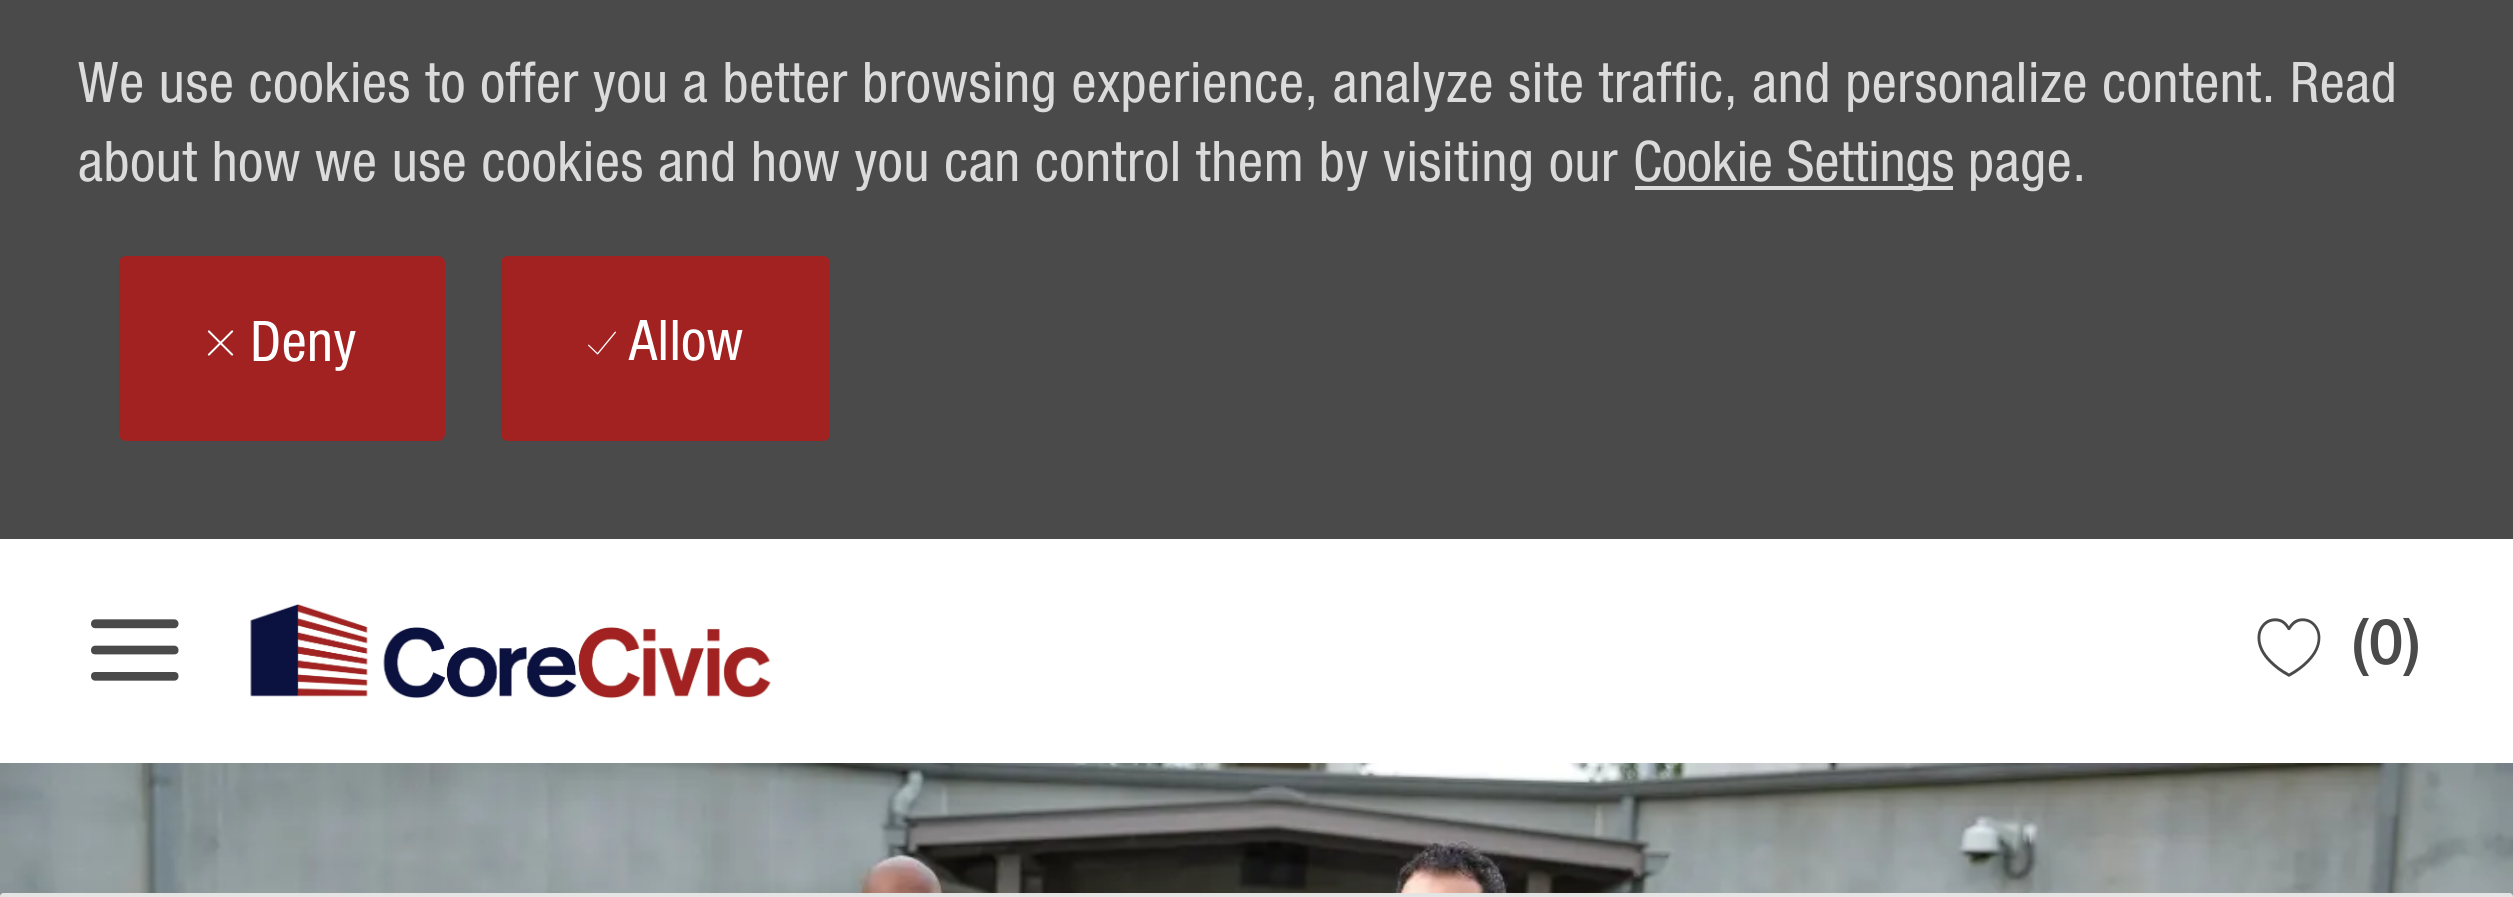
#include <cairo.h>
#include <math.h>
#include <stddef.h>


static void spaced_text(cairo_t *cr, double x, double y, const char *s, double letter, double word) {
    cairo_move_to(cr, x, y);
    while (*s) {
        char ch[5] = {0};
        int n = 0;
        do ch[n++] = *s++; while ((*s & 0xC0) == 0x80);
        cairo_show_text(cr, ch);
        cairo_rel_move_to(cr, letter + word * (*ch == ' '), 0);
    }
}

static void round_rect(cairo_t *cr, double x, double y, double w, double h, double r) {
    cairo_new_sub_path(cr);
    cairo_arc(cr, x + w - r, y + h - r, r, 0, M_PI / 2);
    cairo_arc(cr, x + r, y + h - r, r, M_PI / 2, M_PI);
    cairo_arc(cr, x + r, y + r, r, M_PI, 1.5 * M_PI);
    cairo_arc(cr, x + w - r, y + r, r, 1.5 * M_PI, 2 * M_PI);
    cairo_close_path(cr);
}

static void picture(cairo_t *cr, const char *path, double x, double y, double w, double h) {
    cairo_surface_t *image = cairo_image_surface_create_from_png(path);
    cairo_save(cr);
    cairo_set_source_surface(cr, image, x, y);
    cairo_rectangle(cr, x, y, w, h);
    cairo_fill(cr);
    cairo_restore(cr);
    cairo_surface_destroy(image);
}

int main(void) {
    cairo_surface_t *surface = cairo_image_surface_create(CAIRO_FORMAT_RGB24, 2513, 897);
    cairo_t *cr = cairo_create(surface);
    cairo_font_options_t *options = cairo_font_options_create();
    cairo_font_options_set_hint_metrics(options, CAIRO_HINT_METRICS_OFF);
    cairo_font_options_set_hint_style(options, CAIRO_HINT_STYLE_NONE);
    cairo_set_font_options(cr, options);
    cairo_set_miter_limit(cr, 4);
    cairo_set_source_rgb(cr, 1, 1, 1);
    cairo_paint(cr);
    cairo_set_source_rgb(cr, 0.29, 0.29, 0.29);
    cairo_rectangle(cr, 0, 0, 2513, 539);
    cairo_fill(cr);
    cairo_select_font_face(cr, "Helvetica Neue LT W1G", CAIRO_FONT_SLANT_NORMAL, CAIRO_FONT_WEIGHT_NORMAL);
    cairo_set_font_size(cr, 56);
    cairo_set_source_rgb(cr, 0.859, 0.859, 0.859);
    spaced_text(cr, 78, 102, "We use cookies to offer you a better browsing experience, analyze site traffic, and personalize content. Read", 0.7, 0);
    spaced_text(cr, 78, 181, "about how we use cookies and how you can control them by visiting our", 0.7, 0);
    cairo_rectangle(cr, 1635, 186, 318, 4);
    cairo_fill(cr);
    cairo_move_to(cr, 1633, 181);
    cairo_show_text(cr, "Cookie Settings");
    spaced_text(cr, 1968, 181, "page.", 0.7, 0);
    cairo_set_source_rgb(cr, 0.631, 0.133, 0.129);
    round_rect(cr, 121, 258, 322, 181, 5);
    cairo_fill_preserve(cr);
    cairo_set_line_width(cr, 4);
    cairo_stroke(cr);
    picture(cr, "img1.png", 207, 330, 27, 26);
    cairo_set_source_rgb(cr, 1, 1, 1);
    spaced_text(cr, 250, 361, "Deny", 0.5, 0);
    cairo_set_source_rgb(cr, 0.631, 0.133, 0.129);
    round_rect(cr, 503, 258, 325, 181, 5);
    cairo_fill_preserve(cr);
    cairo_stroke(cr);
    picture(cr, "img2.png", 588, 331, 28, 24);
    cairo_set_source_rgb(cr, 1, 1, 1);
    spaced_text(cr, 629, 360, "Allow", 0.5, 0);
    picture(cr, "img3.png", 91, 619, 88, 62);
    picture(cr, "img4.png", 250, 604, 521, 95);
    picture(cr, "img5.png", 2257, 618, 64, 59);
    cairo_select_font_face(cr, "Helvetica Neue LT W1G Medium", CAIRO_FONT_SLANT_NORMAL, CAIRO_FONT_WEIGHT_NORMAL);
    cairo_set_font_size(cr, 63);
    cairo_set_source_rgb(cr, 0.29, 0.29, 0.29);
    cairo_move_to(cr, 2351, 664);
    cairo_show_text(cr, "(0)");
    picture(cr, "img6.png", 0, 763, 2513, 134);
    cairo_set_source_rgb(cr, 0.894, 0.894, 0.894);
    round_rect(cr, 0, 893, 2513, 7, 3.5);
    cairo_fill(cr);
    cairo_surface_write_to_png(surface, "page.png");
    cairo_font_options_destroy(options);
    cairo_destroy(cr);
    cairo_surface_destroy(surface);
    return 0;
}
